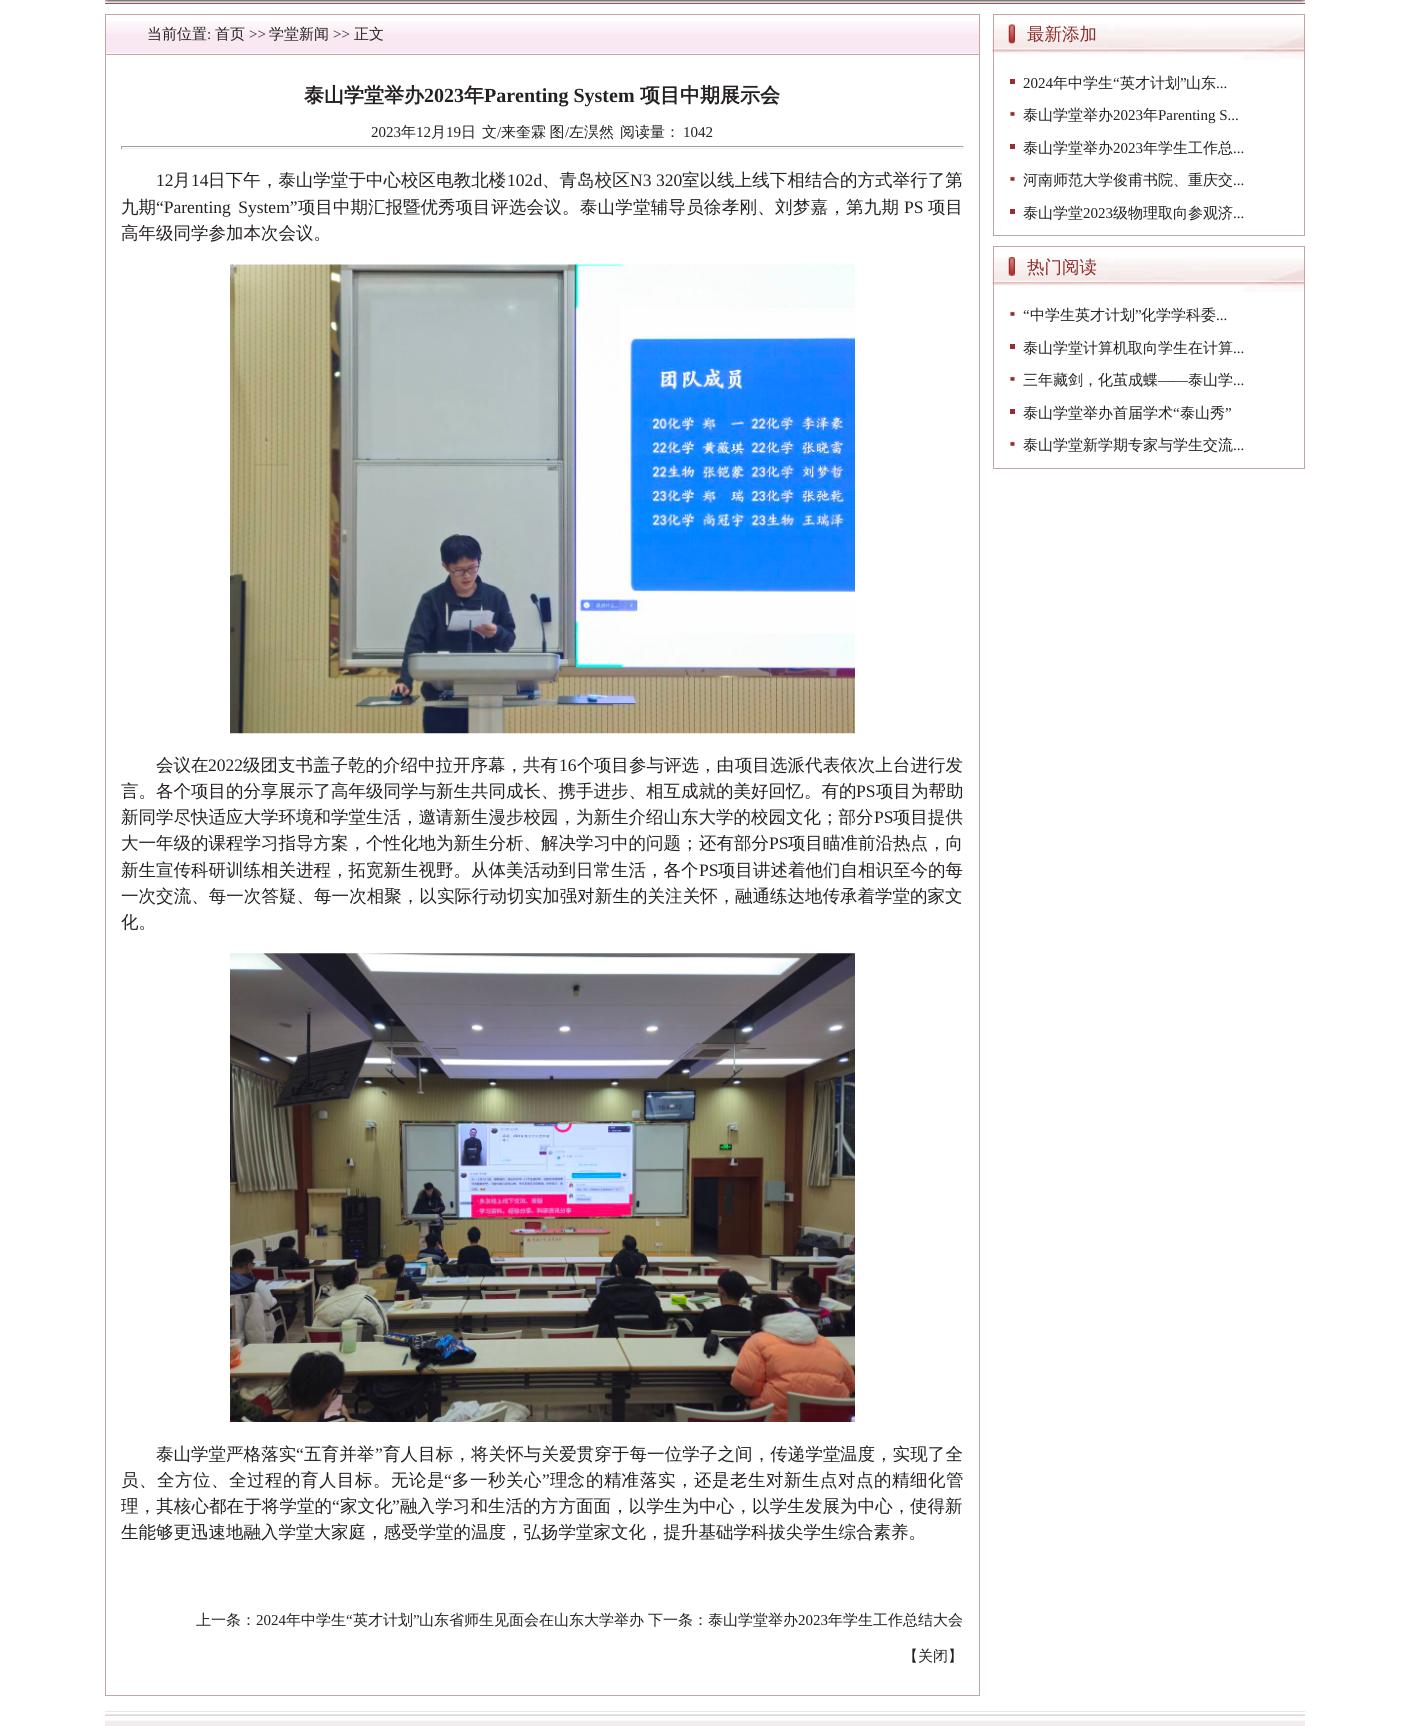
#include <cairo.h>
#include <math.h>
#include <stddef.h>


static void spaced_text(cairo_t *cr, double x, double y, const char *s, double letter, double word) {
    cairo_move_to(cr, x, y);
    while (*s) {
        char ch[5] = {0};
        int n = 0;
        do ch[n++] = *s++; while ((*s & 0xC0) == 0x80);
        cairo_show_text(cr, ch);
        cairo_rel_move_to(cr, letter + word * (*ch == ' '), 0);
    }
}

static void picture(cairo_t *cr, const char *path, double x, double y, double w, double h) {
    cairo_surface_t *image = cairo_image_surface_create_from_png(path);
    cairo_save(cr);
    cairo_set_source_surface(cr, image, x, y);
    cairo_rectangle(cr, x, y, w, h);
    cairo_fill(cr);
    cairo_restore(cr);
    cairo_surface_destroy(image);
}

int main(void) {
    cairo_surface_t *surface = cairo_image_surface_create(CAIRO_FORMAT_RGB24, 1408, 1726);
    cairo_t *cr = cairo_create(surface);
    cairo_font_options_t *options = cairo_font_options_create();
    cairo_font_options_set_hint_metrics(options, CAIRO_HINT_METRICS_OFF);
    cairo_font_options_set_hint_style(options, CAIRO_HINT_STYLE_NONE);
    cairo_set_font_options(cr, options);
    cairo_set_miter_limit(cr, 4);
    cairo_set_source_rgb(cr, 1, 1, 1);
    cairo_paint(cr);
    cairo_set_source_rgb(cr, 0.549, 0.125, 0.129);
    cairo_rectangle(cr, 105, 3, 1200, 1);
    cairo_fill(cr);
    picture(cr, "img1.png", 105, 0, 1200, 4);
    picture(cr, "img2.png", 106, 21, 873, 33);
    cairo_rectangle(cr, 105.5, 14.5, 874, 40);
    cairo_set_source_rgb(cr, 0.757, 0.643, 0.639);
    cairo_set_line_width(cr, 1);
    cairo_stroke(cr);
    cairo_select_font_face(cr, "WenQuanYi Zen Hei Medium", CAIRO_FONT_SLANT_NORMAL, CAIRO_FONT_WEIGHT_NORMAL);
    cairo_set_font_size(cr, 15);
    cairo_set_source_rgb(cr, 0.145, 0.125, 0.125);
    cairo_move_to(cr, 147, 39);
    cairo_show_text(cr, "当前位置");
    cairo_select_font_face(cr, "Liberation Serif", CAIRO_FONT_SLANT_NORMAL, CAIRO_FONT_WEIGHT_NORMAL);
    cairo_move_to(cr, 207, 39);
    cairo_show_text(cr, ":");
    cairo_select_font_face(cr, "WenQuanYi Zen Hei Medium", CAIRO_FONT_SLANT_NORMAL, CAIRO_FONT_WEIGHT_NORMAL);
    cairo_move_to(cr, 215, 39);
    cairo_show_text(cr, "首页");
    cairo_select_font_face(cr, "Liberation Serif", CAIRO_FONT_SLANT_NORMAL, CAIRO_FONT_WEIGHT_NORMAL);
    cairo_move_to(cr, 249, 39);
    cairo_show_text(cr, ">>");
    cairo_select_font_face(cr, "WenQuanYi Zen Hei Medium", CAIRO_FONT_SLANT_NORMAL, CAIRO_FONT_WEIGHT_NORMAL);
    cairo_move_to(cr, 269, 39);
    cairo_show_text(cr, "学堂新闻");
    cairo_select_font_face(cr, "Liberation Serif", CAIRO_FONT_SLANT_NORMAL, CAIRO_FONT_WEIGHT_NORMAL);
    cairo_move_to(cr, 333, 39);
    cairo_show_text(cr, ">>");
    cairo_select_font_face(cr, "WenQuanYi Zen Hei Medium", CAIRO_FONT_SLANT_NORMAL, CAIRO_FONT_WEIGHT_NORMAL);
    cairo_move_to(cr, 354, 39);
    cairo_show_text(cr, "正文");
    cairo_set_source_rgb(cr, 0.757, 0.643, 0.639);
    cairo_rectangle(cr, 979, 55, 1, 1641);
    cairo_fill(cr);
    cairo_rectangle(cr, 105, 1695, 875, 1);
    cairo_fill(cr);
    cairo_rectangle(cr, 105, 55, 1, 1641);
    cairo_fill(cr);
    cairo_select_font_face(cr, "WenQuanYi Zen Hei", CAIRO_FONT_SLANT_NORMAL, CAIRO_FONT_WEIGHT_BOLD);
    cairo_set_font_size(cr, 20);
    cairo_set_source_rgb(cr, 0.145, 0.125, 0.125);
    cairo_move_to(cr, 304, 102);
    cairo_show_text(cr, "泰山学堂举办");
    cairo_select_font_face(cr, "Liberation Serif", CAIRO_FONT_SLANT_NORMAL, CAIRO_FONT_WEIGHT_BOLD);
    cairo_move_to(cr, 424, 102);
    cairo_show_text(cr, "2023");
    cairo_select_font_face(cr, "WenQuanYi Zen Hei", CAIRO_FONT_SLANT_NORMAL, CAIRO_FONT_WEIGHT_BOLD);
    cairo_move_to(cr, 464, 102);
    cairo_show_text(cr, "年");
    cairo_select_font_face(cr, "Liberation Serif", CAIRO_FONT_SLANT_NORMAL, CAIRO_FONT_WEIGHT_BOLD);
    cairo_move_to(cr, 484, 102);
    cairo_show_text(cr, "Parenting System");
    cairo_select_font_face(cr, "WenQuanYi Zen Hei", CAIRO_FONT_SLANT_NORMAL, CAIRO_FONT_WEIGHT_BOLD);
    cairo_move_to(cr, 640, 102);
    cairo_show_text(cr, "项目中期展示会");
    cairo_select_font_face(cr, "Liberation Serif", CAIRO_FONT_SLANT_NORMAL, CAIRO_FONT_WEIGHT_NORMAL);
    cairo_set_font_size(cr, 15);
    cairo_move_to(cr, 371, 137);
    cairo_show_text(cr, "2023");
    cairo_select_font_face(cr, "WenQuanYi Zen Hei Medium", CAIRO_FONT_SLANT_NORMAL, CAIRO_FONT_WEIGHT_NORMAL);
    cairo_move_to(cr, 401, 137);
    cairo_show_text(cr, "年");
    cairo_select_font_face(cr, "Liberation Serif", CAIRO_FONT_SLANT_NORMAL, CAIRO_FONT_WEIGHT_NORMAL);
    cairo_move_to(cr, 416, 137);
    cairo_show_text(cr, "12");
    cairo_select_font_face(cr, "WenQuanYi Zen Hei Medium", CAIRO_FONT_SLANT_NORMAL, CAIRO_FONT_WEIGHT_NORMAL);
    cairo_move_to(cr, 431, 137);
    cairo_show_text(cr, "月");
    cairo_select_font_face(cr, "Liberation Serif", CAIRO_FONT_SLANT_NORMAL, CAIRO_FONT_WEIGHT_NORMAL);
    cairo_move_to(cr, 446, 137);
    cairo_show_text(cr, "19");
    cairo_select_font_face(cr, "WenQuanYi Zen Hei Medium", CAIRO_FONT_SLANT_NORMAL, CAIRO_FONT_WEIGHT_NORMAL);
    cairo_move_to(cr, 461, 137);
    cairo_show_text(cr, "日");
    cairo_move_to(cr, 482, 137);
    cairo_show_text(cr, "文");
    cairo_select_font_face(cr, "Liberation Serif", CAIRO_FONT_SLANT_NORMAL, CAIRO_FONT_WEIGHT_NORMAL);
    cairo_move_to(cr, 497, 137);
    cairo_show_text(cr, "/");
    cairo_select_font_face(cr, "WenQuanYi Zen Hei Medium", CAIRO_FONT_SLANT_NORMAL, CAIRO_FONT_WEIGHT_NORMAL);
    spaced_text(cr, 501, 137, "来奎霖 图", 0, -1);
    cairo_select_font_face(cr, "Liberation Serif", CAIRO_FONT_SLANT_NORMAL, CAIRO_FONT_WEIGHT_NORMAL);
    cairo_move_to(cr, 565, 137);
    cairo_show_text(cr, "/");
    cairo_select_font_face(cr, "WenQuanYi Zen Hei Medium", CAIRO_FONT_SLANT_NORMAL, CAIRO_FONT_WEIGHT_NORMAL);
    cairo_move_to(cr, 569, 137);
    cairo_show_text(cr, "左淏然");
    cairo_move_to(cr, 620, 137);
    cairo_show_text(cr, "阅读量：");
    cairo_select_font_face(cr, "Liberation Serif", CAIRO_FONT_SLANT_NORMAL, CAIRO_FONT_WEIGHT_NORMAL);
    cairo_move_to(cr, 683, 137);
    cairo_show_text(cr, "1042");
    cairo_set_source_rgb(cr, 0.624, 0.624, 0.624);
    cairo_rectangle(cr, 121, 146, 843, 1);
    cairo_fill(cr);
    cairo_set_source_rgb(cr, 0.933, 0.933, 0.933);
    cairo_rectangle(cr, 963, 146, 1, 3);
    cairo_fill(cr);
    cairo_rectangle(cr, 121, 148, 843, 1);
    cairo_fill(cr);
    cairo_set_source_rgb(cr, 0.624, 0.624, 0.624);
    cairo_rectangle(cr, 121, 146, 1, 3);
    cairo_fill(cr);
    cairo_set_font_size(cr, 17.5);
    cairo_set_source_rgb(cr, 0.145, 0.125, 0.125);
    spaced_text(cr, 156, 186, "12", 0.05, 0);
    cairo_select_font_face(cr, "WenQuanYi Zen Hei Medium", CAIRO_FONT_SLANT_NORMAL, CAIRO_FONT_WEIGHT_NORMAL);
    spaced_text(cr, 173, 186, "月", 0.05, 0);
    cairo_select_font_face(cr, "Liberation Serif", CAIRO_FONT_SLANT_NORMAL, CAIRO_FONT_WEIGHT_NORMAL);
    spaced_text(cr, 191, 186, "14", 0.05, 0);
    cairo_select_font_face(cr, "WenQuanYi Zen Hei Medium", CAIRO_FONT_SLANT_NORMAL, CAIRO_FONT_WEIGHT_NORMAL);
    spaced_text(cr, 208, 186, "日下午，泰山学堂于中心校区电教北楼", 0.05, 0);
    cairo_select_font_face(cr, "Liberation Serif", CAIRO_FONT_SLANT_NORMAL, CAIRO_FONT_WEIGHT_NORMAL);
    spaced_text(cr, 507, 186, "102d", 0.05, 0);
    cairo_select_font_face(cr, "WenQuanYi Zen Hei Medium", CAIRO_FONT_SLANT_NORMAL, CAIRO_FONT_WEIGHT_NORMAL);
    spaced_text(cr, 542, 186, "、青岛校区", 0.05, 0);
    cairo_select_font_face(cr, "Liberation Serif", CAIRO_FONT_SLANT_NORMAL, CAIRO_FONT_WEIGHT_NORMAL);
    spaced_text(cr, 630, 186, "N3 320", 0.05, 0);
    cairo_select_font_face(cr, "WenQuanYi Zen Hei Medium", CAIRO_FONT_SLANT_NORMAL, CAIRO_FONT_WEIGHT_NORMAL);
    spaced_text(cr, 682, 186, "室以线上线下相结合的方式举行了第", 0.05, 0);
    cairo_move_to(cr, 121, 213);
    cairo_show_text(cr, "九期");
    cairo_select_font_face(cr, "Liberation Serif", CAIRO_FONT_SLANT_NORMAL, CAIRO_FONT_WEIGHT_NORMAL);
    spaced_text(cr, 156, 213, "“Parenting System”", 0, 3);
    cairo_select_font_face(cr, "WenQuanYi Zen Hei Medium", CAIRO_FONT_SLANT_NORMAL, CAIRO_FONT_WEIGHT_NORMAL);
    cairo_move_to(cr, 298, 213);
    cairo_show_text(cr, "项目中期汇报暨优秀项目");
    spaced_text(cr, 491, 213, "评选会议。泰山学堂辅导员徐孝刚、刘梦嘉，第九期", 0.25, 0);
    cairo_select_font_face(cr, "Liberation Serif", CAIRO_FONT_SLANT_NORMAL, CAIRO_FONT_WEIGHT_NORMAL);
    cairo_move_to(cr, 904, 213);
    cairo_show_text(cr, "PS");
    cairo_select_font_face(cr, "WenQuanYi Zen Hei Medium", CAIRO_FONT_SLANT_NORMAL, CAIRO_FONT_WEIGHT_NORMAL);
    cairo_move_to(cr, 928, 213);
    cairo_show_text(cr, "项目");
    cairo_move_to(cr, 121, 239);
    cairo_show_text(cr, "高年级同学参加本次会议。");
    picture(cr, "img3.png", 230, 264, 625, 470);
    cairo_move_to(cr, 156, 771);
    cairo_show_text(cr, "会议在");
    cairo_select_font_face(cr, "Liberation Serif", CAIRO_FONT_SLANT_NORMAL, CAIRO_FONT_WEIGHT_NORMAL);
    cairo_move_to(cr, 208, 771);
    cairo_show_text(cr, "2022");
    cairo_select_font_face(cr, "WenQuanYi Zen Hei Medium", CAIRO_FONT_SLANT_NORMAL, CAIRO_FONT_WEIGHT_NORMAL);
    cairo_move_to(cr, 243, 771);
    cairo_show_text(cr, "级团支书盖子乾的介绍中拉开序幕，共有");
    cairo_select_font_face(cr, "Liberation Serif", CAIRO_FONT_SLANT_NORMAL, CAIRO_FONT_WEIGHT_NORMAL);
    cairo_move_to(cr, 559, 771);
    cairo_show_text(cr, "16");
    cairo_select_font_face(cr, "WenQuanYi Zen Hei Medium", CAIRO_FONT_SLANT_NORMAL, CAIRO_FONT_WEIGHT_NORMAL);
    cairo_move_to(cr, 577, 771);
    cairo_show_text(cr, "个");
    cairo_move_to(cr, 594, 771);
    cairo_show_text(cr, "项目参与评选，由");
    cairo_move_to(cr, 735, 771);
    cairo_show_text(cr, "项目");
    spaced_text(cr, 770, 771, "选派代表依次上台进行发", 0.05, 0);
    cairo_move_to(cr, 121, 797);
    cairo_show_text(cr, "言。各个项目的分享展示了高年级同学与新生共同成长、携手进步、相互成就的美好回忆");
    cairo_move_to(cr, 804, 797);
    cairo_show_text(cr, "。有的");
    cairo_select_font_face(cr, "Liberation Serif", CAIRO_FONT_SLANT_NORMAL, CAIRO_FONT_WEIGHT_NORMAL);
    cairo_move_to(cr, 856, 797);
    cairo_show_text(cr, "PS");
    cairo_select_font_face(cr, "WenQuanYi Zen Hei Medium", CAIRO_FONT_SLANT_NORMAL, CAIRO_FONT_WEIGHT_NORMAL);
    cairo_move_to(cr, 876, 797);
    cairo_show_text(cr, "项目为帮助");
    cairo_move_to(cr, 121, 823);
    cairo_show_text(cr, "新同学尽快适应大学环境和学堂生活，邀请新生漫步校园，为新生介绍山东大学的校园文化");
    cairo_move_to(cr, 821, 823);
    cairo_show_text(cr, "；部分");
    cairo_select_font_face(cr, "Liberation Serif", CAIRO_FONT_SLANT_NORMAL, CAIRO_FONT_WEIGHT_NORMAL);
    cairo_move_to(cr, 874, 823);
    cairo_show_text(cr, "PS");
    cairo_select_font_face(cr, "WenQuanYi Zen Hei Medium", CAIRO_FONT_SLANT_NORMAL, CAIRO_FONT_WEIGHT_NORMAL);
    cairo_move_to(cr, 893, 823);
    cairo_show_text(cr, "项目提供");
    cairo_move_to(cr, 121, 849);
    cairo_show_text(cr, "大一年级的课程学习指导方案，个性化地为新生分析、解决学习中的问题；");
    cairo_move_to(cr, 699, 849);
    cairo_show_text(cr, "还有部分");
    cairo_select_font_face(cr, "Liberation Serif", CAIRO_FONT_SLANT_NORMAL, CAIRO_FONT_WEIGHT_NORMAL);
    cairo_move_to(cr, 769, 849);
    cairo_show_text(cr, "PS");
    cairo_select_font_face(cr, "WenQuanYi Zen Hei Medium", CAIRO_FONT_SLANT_NORMAL, CAIRO_FONT_WEIGHT_NORMAL);
    cairo_move_to(cr, 788, 849);
    cairo_show_text(cr, "项目瞄准前沿热点，向");
    cairo_move_to(cr, 121, 876);
    cairo_show_text(cr, "新生宣传科研训练相关进程，拓宽新生视野。从体美活动到日常生活，各");
    cairo_move_to(cr, 681, 876);
    cairo_show_text(cr, "个");
    cairo_select_font_face(cr, "Liberation Serif", CAIRO_FONT_SLANT_NORMAL, CAIRO_FONT_WEIGHT_NORMAL);
    cairo_move_to(cr, 699, 876);
    cairo_show_text(cr, "PS");
    cairo_select_font_face(cr, "WenQuanYi Zen Hei Medium", CAIRO_FONT_SLANT_NORMAL, CAIRO_FONT_WEIGHT_NORMAL);
    cairo_move_to(cr, 718, 876);
    cairo_show_text(cr, "项目讲述着他们自相识至今的每");
    spaced_text(cr, 121, 902, "一次交流、每一次答疑、每一次相聚，以实际行动切实加强对新生的关注关怀，", 0.05, 0);
    cairo_move_to(cr, 735, 902);
    cairo_show_text(cr, "融通练达地传承着学堂的家文");
    cairo_move_to(cr, 121, 928);
    cairo_show_text(cr, "化。");
    picture(cr, "img4.png", 230, 953, 625, 469);
    cairo_move_to(cr, 156, 1460);
    cairo_show_text(cr, "泰山学堂");
    spaced_text(cr, 226, 1460, "严格落实", 0.1, 0);
    cairo_select_font_face(cr, "Liberation Serif", CAIRO_FONT_SLANT_NORMAL, CAIRO_FONT_WEIGHT_NORMAL);
    spaced_text(cr, 296, 1460, "“", 0.1, 0);
    cairo_select_font_face(cr, "WenQuanYi Zen Hei Medium", CAIRO_FONT_SLANT_NORMAL, CAIRO_FONT_WEIGHT_NORMAL);
    spaced_text(cr, 304, 1460, "五育并举", 0.1, 0);
    cairo_select_font_face(cr, "Liberation Serif", CAIRO_FONT_SLANT_NORMAL, CAIRO_FONT_WEIGHT_NORMAL);
    spaced_text(cr, 375, 1460, "”", 0.1, 0);
    cairo_select_font_face(cr, "WenQuanYi Zen Hei Medium", CAIRO_FONT_SLANT_NORMAL, CAIRO_FONT_WEIGHT_NORMAL);
    spaced_text(cr, 383, 1460, "育人目标，将关怀与关爱贯穿于每一位学子之间，传递学堂", 0.1, 0);
    cairo_move_to(cr, 840, 1460);
    cairo_show_text(cr, "温度");
    spaced_text(cr, 875, 1460, "，实现了全", 0.1, 0);
    spaced_text(cr, 121, 1486, "员、全方位、全过程的育人目标。无论是", 0.5, 0);
    cairo_select_font_face(cr, "Liberation Serif", CAIRO_FONT_SLANT_NORMAL, CAIRO_FONT_WEIGHT_NORMAL);
    spaced_text(cr, 444, 1486, "“", 0.5, 0);
    cairo_select_font_face(cr, "WenQuanYi Zen Hei Medium", CAIRO_FONT_SLANT_NORMAL, CAIRO_FONT_WEIGHT_NORMAL);
    spaced_text(cr, 452, 1486, "多一秒关心", 0.5, 0);
    cairo_select_font_face(cr, "Liberation Serif", CAIRO_FONT_SLANT_NORMAL, CAIRO_FONT_WEIGHT_NORMAL);
    spaced_text(cr, 542, 1486, "”", 0.5, 0);
    cairo_select_font_face(cr, "WenQuanYi Zen Hei Medium", CAIRO_FONT_SLANT_NORMAL, CAIRO_FONT_WEIGHT_NORMAL);
    cairo_move_to(cr, 550, 1486);
    cairo_show_text(cr, "理念");
    cairo_move_to(cr, 586, 1486);
    cairo_show_text(cr, "的");
    cairo_move_to(cr, 604, 1486);
    cairo_show_text(cr, "精准");
    spaced_text(cr, 640, 1486, "落实，还是老生对新生点对点的精细化管", 0.5, 0);
    spaced_text(cr, 121, 1512, "理，其核心都在于将学堂的", 0.1, 0);
    cairo_select_font_face(cr, "Liberation Serif", CAIRO_FONT_SLANT_NORMAL, CAIRO_FONT_WEIGHT_NORMAL);
    spaced_text(cr, 332, 1512, "“", 0.1, 0);
    cairo_select_font_face(cr, "WenQuanYi Zen Hei Medium", CAIRO_FONT_SLANT_NORMAL, CAIRO_FONT_WEIGHT_NORMAL);
    spaced_text(cr, 340, 1512, "家文化", 0.1, 0);
    cairo_select_font_face(cr, "Liberation Serif", CAIRO_FONT_SLANT_NORMAL, CAIRO_FONT_WEIGHT_NORMAL);
    spaced_text(cr, 392, 1512, "”", 0.1, 0);
    cairo_select_font_face(cr, "WenQuanYi Zen Hei Medium", CAIRO_FONT_SLANT_NORMAL, CAIRO_FONT_WEIGHT_NORMAL);
    spaced_text(cr, 400, 1512, "融入学习和生活的方方面面，以学生为中心，以学生发展为中心，", 0.1, 0);
    cairo_move_to(cr, 910, 1512);
    cairo_show_text(cr, "使得新");
    cairo_move_to(cr, 121, 1538);
    cairo_show_text(cr, "生能够更迅速地融入学堂大家庭，感受学堂的温度，弘扬学堂家文化，提升基础学科拔尖学生综合素养。");
    cairo_set_font_size(cr, 15);
    cairo_move_to(cr, 196, 1625);
    cairo_show_text(cr, "上一条：");
    cairo_select_font_face(cr, "Liberation Serif", CAIRO_FONT_SLANT_NORMAL, CAIRO_FONT_WEIGHT_NORMAL);
    cairo_move_to(cr, 256, 1625);
    cairo_show_text(cr, "2024");
    cairo_select_font_face(cr, "WenQuanYi Zen Hei Medium", CAIRO_FONT_SLANT_NORMAL, CAIRO_FONT_WEIGHT_NORMAL);
    cairo_move_to(cr, 286, 1625);
    cairo_show_text(cr, "年中学生");
    cairo_select_font_face(cr, "Liberation Serif", CAIRO_FONT_SLANT_NORMAL, CAIRO_FONT_WEIGHT_NORMAL);
    cairo_move_to(cr, 346, 1625);
    cairo_show_text(cr, "“");
    cairo_select_font_face(cr, "WenQuanYi Zen Hei Medium", CAIRO_FONT_SLANT_NORMAL, CAIRO_FONT_WEIGHT_NORMAL);
    cairo_move_to(cr, 353, 1625);
    cairo_show_text(cr, "英才计划");
    cairo_select_font_face(cr, "Liberation Serif", CAIRO_FONT_SLANT_NORMAL, CAIRO_FONT_WEIGHT_NORMAL);
    cairo_move_to(cr, 413, 1625);
    cairo_show_text(cr, "”");
    cairo_select_font_face(cr, "WenQuanYi Zen Hei Medium", CAIRO_FONT_SLANT_NORMAL, CAIRO_FONT_WEIGHT_NORMAL);
    cairo_move_to(cr, 419, 1625);
    cairo_show_text(cr, "山东省师生见面会在山东大学举办");
    cairo_move_to(cr, 648, 1625);
    cairo_show_text(cr, "下一条：泰山学堂举办");
    cairo_select_font_face(cr, "Liberation Serif", CAIRO_FONT_SLANT_NORMAL, CAIRO_FONT_WEIGHT_NORMAL);
    cairo_move_to(cr, 798, 1625);
    cairo_show_text(cr, "2023");
    cairo_select_font_face(cr, "WenQuanYi Zen Hei Medium", CAIRO_FONT_SLANT_NORMAL, CAIRO_FONT_WEIGHT_NORMAL);
    cairo_move_to(cr, 828, 1625);
    cairo_show_text(cr, "年学生工作总结大会");
    cairo_move_to(cr, 903, 1661);
    cairo_show_text(cr, "【关闭】");
    picture(cr, "img5.png", 992, 24, 312, 36);
    cairo_set_source_rgb(cr, 0.757, 0.643, 0.639);
    cairo_rectangle(cr, 993, 14, 312, 1);
    cairo_fill(cr);
    cairo_rectangle(cr, 1304, 14, 1, 222);
    cairo_fill(cr);
    cairo_rectangle(cr, 993, 14, 1, 46);
    cairo_fill(cr);
    picture(cr, "img6.png", 1008, 24, 7, 20);
    cairo_set_font_size(cr, 17.5);
    cairo_set_source_rgb(cr, 0.549, 0.173, 0.165);
    cairo_move_to(cr, 1027, 40);
    cairo_show_text(cr, "最新添加");
    cairo_set_source_rgb(cr, 0.757, 0.643, 0.639);
    cairo_rectangle(cr, 993, 235, 312, 1);
    cairo_fill(cr);
    cairo_rectangle(cr, 993, 60, 1, 176);
    cairo_fill(cr);
    cairo_set_source_rgb(cr, 0.6, 0.18, 0.192);
    cairo_rectangle(cr, 1010, 79, 5, 5);
    cairo_fill(cr);
    cairo_select_font_face(cr, "Liberation Serif", CAIRO_FONT_SLANT_NORMAL, CAIRO_FONT_WEIGHT_NORMAL);
    cairo_set_font_size(cr, 15);
    cairo_set_source_rgb(cr, 0.145, 0.125, 0.125);
    cairo_move_to(cr, 1023, 88);
    cairo_show_text(cr, "2024");
    cairo_select_font_face(cr, "WenQuanYi Zen Hei Medium", CAIRO_FONT_SLANT_NORMAL, CAIRO_FONT_WEIGHT_NORMAL);
    cairo_move_to(cr, 1053, 88);
    cairo_show_text(cr, "年中学生");
    cairo_select_font_face(cr, "Liberation Serif", CAIRO_FONT_SLANT_NORMAL, CAIRO_FONT_WEIGHT_NORMAL);
    cairo_move_to(cr, 1113, 88);
    cairo_show_text(cr, "“");
    cairo_select_font_face(cr, "WenQuanYi Zen Hei Medium", CAIRO_FONT_SLANT_NORMAL, CAIRO_FONT_WEIGHT_NORMAL);
    cairo_move_to(cr, 1120, 88);
    cairo_show_text(cr, "英才计划");
    cairo_select_font_face(cr, "Liberation Serif", CAIRO_FONT_SLANT_NORMAL, CAIRO_FONT_WEIGHT_NORMAL);
    cairo_move_to(cr, 1180, 88);
    cairo_show_text(cr, "”");
    cairo_select_font_face(cr, "WenQuanYi Zen Hei Medium", CAIRO_FONT_SLANT_NORMAL, CAIRO_FONT_WEIGHT_NORMAL);
    cairo_move_to(cr, 1186, 88);
    cairo_show_text(cr, "山东");
    cairo_select_font_face(cr, "Liberation Serif", CAIRO_FONT_SLANT_NORMAL, CAIRO_FONT_WEIGHT_NORMAL);
    cairo_move_to(cr, 1216, 88);
    cairo_show_text(cr, "...");
    picture(cr, "img7.png", 1010, 111, 5, 5);
    cairo_select_font_face(cr, "WenQuanYi Zen Hei Medium", CAIRO_FONT_SLANT_NORMAL, CAIRO_FONT_WEIGHT_NORMAL);
    cairo_move_to(cr, 1023, 120);
    cairo_show_text(cr, "泰山学堂举办");
    cairo_select_font_face(cr, "Liberation Serif", CAIRO_FONT_SLANT_NORMAL, CAIRO_FONT_WEIGHT_NORMAL);
    cairo_move_to(cr, 1113, 120);
    cairo_show_text(cr, "2023");
    cairo_select_font_face(cr, "WenQuanYi Zen Hei Medium", CAIRO_FONT_SLANT_NORMAL, CAIRO_FONT_WEIGHT_NORMAL);
    cairo_move_to(cr, 1143, 120);
    cairo_show_text(cr, "年");
    cairo_select_font_face(cr, "Liberation Serif", CAIRO_FONT_SLANT_NORMAL, CAIRO_FONT_WEIGHT_NORMAL);
    cairo_move_to(cr, 1158, 120);
    cairo_show_text(cr, "Parenting S...");
    cairo_set_source_rgb(cr, 0.6, 0.18, 0.192);
    cairo_rectangle(cr, 1010, 144, 5, 5);
    cairo_fill(cr);
    cairo_select_font_face(cr, "WenQuanYi Zen Hei Medium", CAIRO_FONT_SLANT_NORMAL, CAIRO_FONT_WEIGHT_NORMAL);
    cairo_set_source_rgb(cr, 0.145, 0.125, 0.125);
    cairo_move_to(cr, 1023, 153);
    cairo_show_text(cr, "泰山学堂举办");
    cairo_select_font_face(cr, "Liberation Serif", CAIRO_FONT_SLANT_NORMAL, CAIRO_FONT_WEIGHT_NORMAL);
    cairo_move_to(cr, 1113, 153);
    cairo_show_text(cr, "2023");
    cairo_select_font_face(cr, "WenQuanYi Zen Hei Medium", CAIRO_FONT_SLANT_NORMAL, CAIRO_FONT_WEIGHT_NORMAL);
    cairo_move_to(cr, 1143, 153);
    cairo_show_text(cr, "年学生工作总");
    cairo_select_font_face(cr, "Liberation Serif", CAIRO_FONT_SLANT_NORMAL, CAIRO_FONT_WEIGHT_NORMAL);
    cairo_move_to(cr, 1233, 153);
    cairo_show_text(cr, "...");
    picture(cr, "img7.png", 1010, 176, 5, 5);
    cairo_select_font_face(cr, "WenQuanYi Zen Hei Medium", CAIRO_FONT_SLANT_NORMAL, CAIRO_FONT_WEIGHT_NORMAL);
    cairo_move_to(cr, 1023, 185);
    cairo_show_text(cr, "河南师范大学俊甫书院、重庆交");
    cairo_select_font_face(cr, "Liberation Serif", CAIRO_FONT_SLANT_NORMAL, CAIRO_FONT_WEIGHT_NORMAL);
    cairo_move_to(cr, 1233, 185);
    cairo_show_text(cr, "...");
    cairo_set_source_rgb(cr, 0.6, 0.18, 0.192);
    cairo_rectangle(cr, 1010, 209, 5, 5);
    cairo_fill(cr);
    cairo_select_font_face(cr, "WenQuanYi Zen Hei Medium", CAIRO_FONT_SLANT_NORMAL, CAIRO_FONT_WEIGHT_NORMAL);
    cairo_set_source_rgb(cr, 0.145, 0.125, 0.125);
    cairo_move_to(cr, 1023, 218);
    cairo_show_text(cr, "泰山学堂");
    cairo_select_font_face(cr, "Liberation Serif", CAIRO_FONT_SLANT_NORMAL, CAIRO_FONT_WEIGHT_NORMAL);
    cairo_move_to(cr, 1083, 218);
    cairo_show_text(cr, "2023");
    cairo_select_font_face(cr, "WenQuanYi Zen Hei Medium", CAIRO_FONT_SLANT_NORMAL, CAIRO_FONT_WEIGHT_NORMAL);
    cairo_move_to(cr, 1113, 218);
    cairo_show_text(cr, "级物理取向参观济");
    cairo_select_font_face(cr, "Liberation Serif", CAIRO_FONT_SLANT_NORMAL, CAIRO_FONT_WEIGHT_NORMAL);
    cairo_move_to(cr, 1233, 218);
    cairo_show_text(cr, "...");
    picture(cr, "img8.png", 992, 257, 312, 35);
    cairo_set_source_rgb(cr, 0.757, 0.643, 0.639);
    cairo_rectangle(cr, 993, 246, 312, 1);
    cairo_fill(cr);
    cairo_rectangle(cr, 1304, 246, 1, 223);
    cairo_fill(cr);
    cairo_rectangle(cr, 993, 246, 1, 47);
    cairo_fill(cr);
    picture(cr, "img9.png", 1008, 257, 7, 19);
    cairo_select_font_face(cr, "WenQuanYi Zen Hei Medium", CAIRO_FONT_SLANT_NORMAL, CAIRO_FONT_WEIGHT_NORMAL);
    cairo_set_font_size(cr, 17.5);
    cairo_set_source_rgb(cr, 0.549, 0.173, 0.165);
    cairo_move_to(cr, 1027, 273);
    cairo_show_text(cr, "热门阅读");
    cairo_set_source_rgb(cr, 0.757, 0.643, 0.639);
    cairo_rectangle(cr, 993, 468, 312, 1);
    cairo_fill(cr);
    cairo_rectangle(cr, 993, 293, 1, 176);
    cairo_fill(cr);
    picture(cr, "img7.png", 1010, 311, 5, 5);
    cairo_select_font_face(cr, "Liberation Serif", CAIRO_FONT_SLANT_NORMAL, CAIRO_FONT_WEIGHT_NORMAL);
    cairo_set_font_size(cr, 15);
    cairo_set_source_rgb(cr, 0.145, 0.125, 0.125);
    cairo_move_to(cr, 1023, 320);
    cairo_show_text(cr, "“");
    cairo_select_font_face(cr, "WenQuanYi Zen Hei Medium", CAIRO_FONT_SLANT_NORMAL, CAIRO_FONT_WEIGHT_NORMAL);
    cairo_move_to(cr, 1030, 320);
    cairo_show_text(cr, "中学生英才计划");
    cairo_select_font_face(cr, "Liberation Serif", CAIRO_FONT_SLANT_NORMAL, CAIRO_FONT_WEIGHT_NORMAL);
    cairo_move_to(cr, 1135, 320);
    cairo_show_text(cr, "”");
    cairo_select_font_face(cr, "WenQuanYi Zen Hei Medium", CAIRO_FONT_SLANT_NORMAL, CAIRO_FONT_WEIGHT_NORMAL);
    cairo_move_to(cr, 1141, 320);
    cairo_show_text(cr, "化学学科委");
    cairo_select_font_face(cr, "Liberation Serif", CAIRO_FONT_SLANT_NORMAL, CAIRO_FONT_WEIGHT_NORMAL);
    cairo_move_to(cr, 1216, 320);
    cairo_show_text(cr, "...");
    cairo_set_source_rgb(cr, 0.6, 0.18, 0.192);
    cairo_rectangle(cr, 1010, 344, 5, 5);
    cairo_fill(cr);
    cairo_select_font_face(cr, "WenQuanYi Zen Hei Medium", CAIRO_FONT_SLANT_NORMAL, CAIRO_FONT_WEIGHT_NORMAL);
    cairo_set_source_rgb(cr, 0.145, 0.125, 0.125);
    cairo_move_to(cr, 1023, 353);
    cairo_show_text(cr, "泰山学堂计算机取向学生在计算");
    cairo_select_font_face(cr, "Liberation Serif", CAIRO_FONT_SLANT_NORMAL, CAIRO_FONT_WEIGHT_NORMAL);
    cairo_move_to(cr, 1233, 353);
    cairo_show_text(cr, "...");
    picture(cr, "img7.png", 1010, 376, 5, 5);
    cairo_select_font_face(cr, "WenQuanYi Zen Hei Medium", CAIRO_FONT_SLANT_NORMAL, CAIRO_FONT_WEIGHT_NORMAL);
    cairo_move_to(cr, 1023, 385);
    cairo_show_text(cr, "三年藏剑，化茧成蝶");
    cairo_select_font_face(cr, "Liberation Serif", CAIRO_FONT_SLANT_NORMAL, CAIRO_FONT_WEIGHT_NORMAL);
    cairo_move_to(cr, 1158, 385);
    cairo_show_text(cr, "——");
    cairo_select_font_face(cr, "WenQuanYi Zen Hei Medium", CAIRO_FONT_SLANT_NORMAL, CAIRO_FONT_WEIGHT_NORMAL);
    cairo_move_to(cr, 1188, 385);
    cairo_show_text(cr, "泰山学");
    cairo_select_font_face(cr, "Liberation Serif", CAIRO_FONT_SLANT_NORMAL, CAIRO_FONT_WEIGHT_NORMAL);
    cairo_move_to(cr, 1233, 385);
    cairo_show_text(cr, "...");
    cairo_set_source_rgb(cr, 0.6, 0.18, 0.192);
    cairo_rectangle(cr, 1010, 409, 5, 5);
    cairo_fill(cr);
    cairo_select_font_face(cr, "WenQuanYi Zen Hei Medium", CAIRO_FONT_SLANT_NORMAL, CAIRO_FONT_WEIGHT_NORMAL);
    cairo_set_source_rgb(cr, 0.145, 0.125, 0.125);
    cairo_move_to(cr, 1023, 418);
    cairo_show_text(cr, "泰山学堂举办首届学术");
    cairo_select_font_face(cr, "Liberation Serif", CAIRO_FONT_SLANT_NORMAL, CAIRO_FONT_WEIGHT_NORMAL);
    cairo_move_to(cr, 1173, 418);
    cairo_show_text(cr, "“");
    cairo_select_font_face(cr, "WenQuanYi Zen Hei Medium", CAIRO_FONT_SLANT_NORMAL, CAIRO_FONT_WEIGHT_NORMAL);
    cairo_move_to(cr, 1180, 418);
    cairo_show_text(cr, "泰山秀");
    cairo_select_font_face(cr, "Liberation Serif", CAIRO_FONT_SLANT_NORMAL, CAIRO_FONT_WEIGHT_NORMAL);
    cairo_move_to(cr, 1225, 418);
    cairo_show_text(cr, "”");
    picture(cr, "img7.png", 1010, 441, 5, 5);
    cairo_select_font_face(cr, "WenQuanYi Zen Hei Medium", CAIRO_FONT_SLANT_NORMAL, CAIRO_FONT_WEIGHT_NORMAL);
    cairo_move_to(cr, 1023, 450);
    cairo_show_text(cr, "泰山学堂新学期专家与学生交流");
    cairo_select_font_face(cr, "Liberation Serif", CAIRO_FONT_SLANT_NORMAL, CAIRO_FONT_WEIGHT_NORMAL);
    cairo_move_to(cr, 1233, 450);
    cairo_show_text(cr, "...");
    cairo_set_source_rgb(cr, 0.91, 0.91, 0.91);
    cairo_rectangle(cr, 105, 1711, 1200, 1);
    cairo_fill(cr);
    picture(cr, "img10.png", 105, 1714, 1200, 12);
    cairo_surface_write_to_png(surface, "page.png");
    cairo_font_options_destroy(options);
    cairo_destroy(cr);
    cairo_surface_destroy(surface);
    return 0;
}
